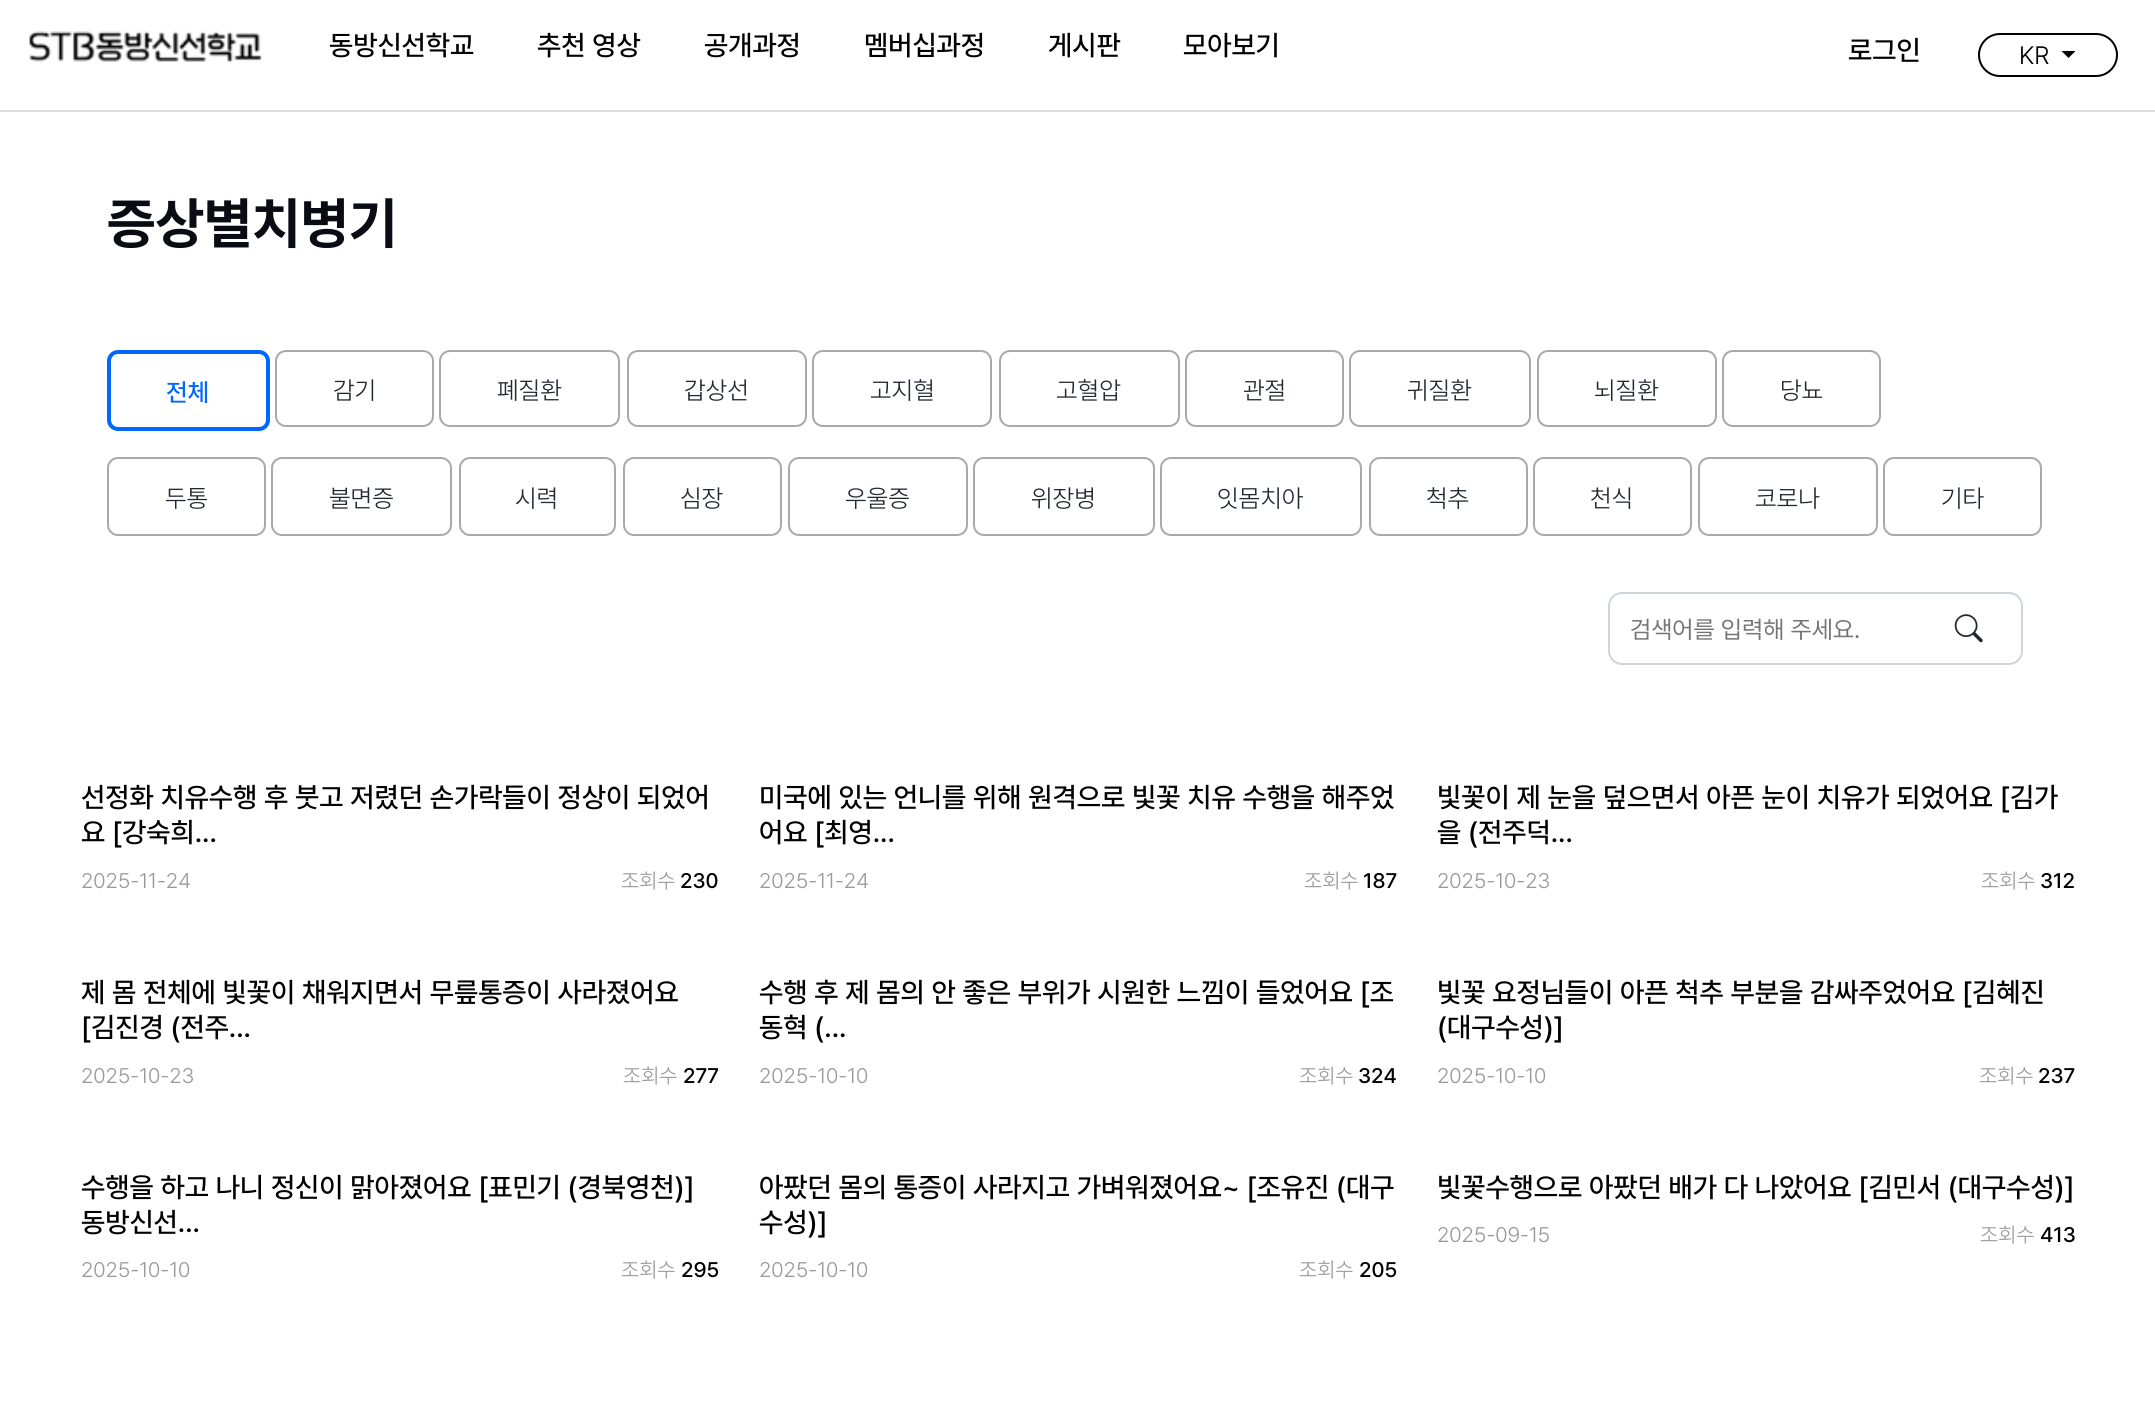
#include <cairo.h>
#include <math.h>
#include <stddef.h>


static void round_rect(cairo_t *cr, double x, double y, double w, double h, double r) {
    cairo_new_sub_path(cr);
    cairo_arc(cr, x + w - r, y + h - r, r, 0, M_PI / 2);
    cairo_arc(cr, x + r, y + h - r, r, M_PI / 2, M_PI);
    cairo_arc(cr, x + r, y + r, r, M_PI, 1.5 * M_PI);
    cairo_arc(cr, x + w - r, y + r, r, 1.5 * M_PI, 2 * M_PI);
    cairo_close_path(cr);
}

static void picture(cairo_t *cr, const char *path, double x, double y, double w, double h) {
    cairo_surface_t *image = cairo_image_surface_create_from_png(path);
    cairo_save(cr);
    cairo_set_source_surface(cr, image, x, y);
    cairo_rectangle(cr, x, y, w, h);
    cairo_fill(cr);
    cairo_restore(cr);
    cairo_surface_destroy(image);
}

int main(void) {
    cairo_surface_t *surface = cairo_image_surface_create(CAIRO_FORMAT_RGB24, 2155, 1409);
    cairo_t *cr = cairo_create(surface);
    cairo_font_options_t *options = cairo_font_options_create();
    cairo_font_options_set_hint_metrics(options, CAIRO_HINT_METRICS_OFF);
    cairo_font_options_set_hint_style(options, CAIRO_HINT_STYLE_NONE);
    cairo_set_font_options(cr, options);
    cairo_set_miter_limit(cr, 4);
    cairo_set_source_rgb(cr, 1, 1, 1);
    cairo_paint(cr);
    cairo_set_source_rgb(cr, 0.867, 0.867, 0.867);
    cairo_rectangle(cr, 0, 110, 2155, 2);
    cairo_fill(cr);
    picture(cr, "img1.png", 29, 31, 233, 31);
    cairo_select_font_face(cr, "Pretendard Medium", CAIRO_FONT_SLANT_NORMAL, CAIRO_FONT_WEIGHT_NORMAL);
    cairo_set_font_size(cr, 28);
    cairo_set_source_rgb(cr, 0, 0, 0);
    cairo_move_to(cr, 329, 55);
    cairo_show_text(cr, "동방신선학교");
    cairo_move_to(cr, 537, 55);
    cairo_show_text(cr, "추천 영상");
    cairo_move_to(cr, 704, 55);
    cairo_show_text(cr, "공개과정");
    cairo_move_to(cr, 864, 55);
    cairo_show_text(cr, "멤버십과정");
    cairo_move_to(cr, 1048, 55);
    cairo_show_text(cr, "게시판");
    cairo_move_to(cr, 1183, 55);
    cairo_show_text(cr, "모아보기");
    cairo_move_to(cr, 1848, 60);
    cairo_show_text(cr, "로그인");
    round_rect(cr, 1979, 34, 138, 42, 21);
    cairo_stroke(cr);
    cairo_select_font_face(cr, "Pretendard Light", CAIRO_FONT_SLANT_NORMAL, CAIRO_FONT_WEIGHT_NORMAL);
    cairo_set_font_size(cr, 25);
    cairo_move_to(cr, 2019, 64);
    cairo_show_text(cr, "KR");
    cairo_new_path(cr);
    cairo_move_to(cr, 2061.5, 51);
    cairo_line_to(cr, 2075.5, 51);
    cairo_line_to(cr, 2068.5, 58);
    cairo_close_path(cr);
    cairo_fill(cr);
    cairo_select_font_face(cr, "Pretendard", CAIRO_FONT_SLANT_NORMAL, CAIRO_FONT_WEIGHT_BOLD);
    cairo_set_font_size(cr, 56);
    cairo_set_source_rgb(cr, 0.039, 0.051, 0.078);
    cairo_move_to(cr, 107, 243);
    cairo_show_text(cr, "증상별치병기");
    round_rect(cr, 109, 352, 159, 77, 9);
    cairo_set_source_rgb(cr, 0, 0.4, 1);
    cairo_set_line_width(cr, 4);
    cairo_stroke(cr);
    cairo_select_font_face(cr, "Pretendard Medium", CAIRO_FONT_SLANT_NORMAL, CAIRO_FONT_WEIGHT_NORMAL);
    cairo_set_font_size(cr, 25);
    cairo_move_to(cr, 166, 401);
    cairo_show_text(cr, "전체");
    round_rect(cr, 276, 351, 157, 75, 10);
    cairo_set_source_rgb(cr, 0.655, 0.663, 0.675);
    cairo_set_line_width(cr, 2);
    cairo_stroke(cr);
    cairo_select_font_face(cr, "Pretendard Light", CAIRO_FONT_SLANT_NORMAL, CAIRO_FONT_WEIGHT_NORMAL);
    cairo_set_source_rgb(cr, 0.137, 0.153, 0.184);
    cairo_move_to(cr, 333, 399);
    cairo_show_text(cr, "감기");
    round_rect(cr, 440, 351, 179, 75, 10);
    cairo_set_source_rgb(cr, 0.655, 0.663, 0.675);
    cairo_stroke(cr);
    cairo_set_source_rgb(cr, 0.137, 0.153, 0.184);
    cairo_move_to(cr, 497, 399);
    cairo_show_text(cr, "폐질환");
    round_rect(cr, 628, 351, 178, 75, 10);
    cairo_set_source_rgb(cr, 0.655, 0.663, 0.675);
    cairo_stroke(cr);
    cairo_set_source_rgb(cr, 0.137, 0.153, 0.184);
    cairo_move_to(cr, 684, 399);
    cairo_show_text(cr, "갑상선");
    round_rect(cr, 813, 351, 178, 75, 10);
    cairo_set_source_rgb(cr, 0.655, 0.663, 0.675);
    cairo_stroke(cr);
    cairo_set_source_rgb(cr, 0.137, 0.153, 0.184);
    cairo_move_to(cr, 870, 399);
    cairo_show_text(cr, "고지혈");
    round_rect(cr, 1000, 351, 179, 75, 10);
    cairo_set_source_rgb(cr, 0.655, 0.663, 0.675);
    cairo_stroke(cr);
    cairo_set_source_rgb(cr, 0.137, 0.153, 0.184);
    cairo_move_to(cr, 1056, 399);
    cairo_show_text(cr, "고혈압");
    round_rect(cr, 1186, 351, 157, 75, 10);
    cairo_set_source_rgb(cr, 0.655, 0.663, 0.675);
    cairo_stroke(cr);
    cairo_set_source_rgb(cr, 0.137, 0.153, 0.184);
    cairo_move_to(cr, 1243, 399);
    cairo_show_text(cr, "관절");
    round_rect(cr, 1350, 351, 180, 75, 10);
    cairo_set_source_rgb(cr, 0.655, 0.663, 0.675);
    cairo_stroke(cr);
    cairo_set_source_rgb(cr, 0.137, 0.153, 0.184);
    cairo_move_to(cr, 1407, 399);
    cairo_show_text(cr, "귀질환");
    round_rect(cr, 1538, 351, 178, 75, 10);
    cairo_set_source_rgb(cr, 0.655, 0.663, 0.675);
    cairo_stroke(cr);
    cairo_set_source_rgb(cr, 0.137, 0.153, 0.184);
    cairo_move_to(cr, 1594, 399);
    cairo_show_text(cr, "뇌질환");
    round_rect(cr, 1723, 351, 157, 75, 10);
    cairo_set_source_rgb(cr, 0.655, 0.663, 0.675);
    cairo_stroke(cr);
    cairo_set_source_rgb(cr, 0.137, 0.153, 0.184);
    cairo_move_to(cr, 1780, 399);
    cairo_show_text(cr, "당뇨");
    round_rect(cr, 108, 458, 157, 77, 10);
    cairo_set_source_rgb(cr, 0.655, 0.663, 0.675);
    cairo_stroke(cr);
    cairo_set_source_rgb(cr, 0.137, 0.153, 0.184);
    cairo_move_to(cr, 165, 507);
    cairo_show_text(cr, "두통");
    round_rect(cr, 272, 458, 179, 77, 10);
    cairo_set_source_rgb(cr, 0.655, 0.663, 0.675);
    cairo_stroke(cr);
    cairo_set_source_rgb(cr, 0.137, 0.153, 0.184);
    cairo_move_to(cr, 329, 507);
    cairo_show_text(cr, "불면증");
    round_rect(cr, 460, 458, 155, 77, 10);
    cairo_set_source_rgb(cr, 0.655, 0.663, 0.675);
    cairo_stroke(cr);
    cairo_set_source_rgb(cr, 0.137, 0.153, 0.184);
    cairo_move_to(cr, 515, 507);
    cairo_show_text(cr, "시력");
    round_rect(cr, 624, 458, 157, 77, 10);
    cairo_set_source_rgb(cr, 0.655, 0.663, 0.675);
    cairo_stroke(cr);
    cairo_set_source_rgb(cr, 0.137, 0.153, 0.184);
    cairo_move_to(cr, 680, 507);
    cairo_show_text(cr, "심장");
    round_rect(cr, 789, 458, 178, 77, 10);
    cairo_set_source_rgb(cr, 0.655, 0.663, 0.675);
    cairo_stroke(cr);
    cairo_set_source_rgb(cr, 0.137, 0.153, 0.184);
    cairo_move_to(cr, 845, 507);
    cairo_show_text(cr, "우울증");
    round_rect(cr, 974, 458, 180, 77, 10);
    cairo_set_source_rgb(cr, 0.655, 0.663, 0.675);
    cairo_stroke(cr);
    cairo_set_source_rgb(cr, 0.137, 0.153, 0.184);
    cairo_move_to(cr, 1031, 507);
    cairo_show_text(cr, "위장병");
    round_rect(cr, 1161, 458, 200, 77, 10);
    cairo_set_source_rgb(cr, 0.655, 0.663, 0.675);
    cairo_stroke(cr);
    cairo_set_source_rgb(cr, 0.137, 0.153, 0.184);
    cairo_move_to(cr, 1217, 507);
    cairo_show_text(cr, "잇몸치아");
    round_rect(cr, 1370, 458, 157, 77, 10);
    cairo_set_source_rgb(cr, 0.655, 0.663, 0.675);
    cairo_stroke(cr);
    cairo_set_source_rgb(cr, 0.137, 0.153, 0.184);
    cairo_move_to(cr, 1426, 507);
    cairo_show_text(cr, "척추");
    round_rect(cr, 1534, 458, 157, 77, 10);
    cairo_set_source_rgb(cr, 0.655, 0.663, 0.675);
    cairo_stroke(cr);
    cairo_set_source_rgb(cr, 0.137, 0.153, 0.184);
    cairo_move_to(cr, 1590, 507);
    cairo_show_text(cr, "천식");
    round_rect(cr, 1699, 458, 178, 77, 10);
    cairo_set_source_rgb(cr, 0.655, 0.663, 0.675);
    cairo_stroke(cr);
    cairo_set_source_rgb(cr, 0.137, 0.153, 0.184);
    cairo_move_to(cr, 1755, 507);
    cairo_show_text(cr, "코로나");
    round_rect(cr, 1884, 458, 157, 77, 10);
    cairo_set_source_rgb(cr, 0.655, 0.663, 0.675);
    cairo_stroke(cr);
    cairo_set_source_rgb(cr, 0.137, 0.153, 0.184);
    cairo_move_to(cr, 1941, 507);
    cairo_show_text(cr, "기타");
    round_rect(cr, 1609, 593, 413, 71, 13);
    cairo_set_source_rgb(cr, 0.808, 0.831, 0.855);
    cairo_stroke(cr);
    cairo_select_font_face(cr, "Pretendard", CAIRO_FONT_SLANT_NORMAL, CAIRO_FONT_WEIGHT_NORMAL);
    cairo_set_font_size(cr, 24.5);
    cairo_set_source_rgb(cr, 0.459, 0.459, 0.459);
    cairo_move_to(cr, 1630, 638);
    cairo_show_text(cr, "검색어를 입력해 주세요.");
    picture(cr, "img2.png", 1954, 614, 29, 29);
    cairo_select_font_face(cr, "Pretendard Medium", CAIRO_FONT_SLANT_NORMAL, CAIRO_FONT_WEIGHT_NORMAL);
    cairo_set_font_size(cr, 28);
    cairo_set_source_rgb(cr, 0, 0, 0);
    cairo_move_to(cr, 81, 807);
    cairo_show_text(cr, "선정화 치유수행 후 붓고 저렸던 손가락들이 정상이 되었어");
    cairo_move_to(cr, 81, 842);
    cairo_show_text(cr, "요 [강숙희...");
    cairo_select_font_face(cr, "Pretendard Light", CAIRO_FONT_SLANT_NORMAL, CAIRO_FONT_WEIGHT_NORMAL);
    cairo_set_font_size(cr, 21);
    cairo_set_source_rgb(cr, 0.6, 0.6, 0.6);
    cairo_move_to(cr, 81, 888);
    cairo_show_text(cr, "2025-11-24");
    cairo_move_to(cr, 621, 888);
    cairo_show_text(cr, "조회수");
    cairo_select_font_face(cr, "Pretendard Medium", CAIRO_FONT_SLANT_NORMAL, CAIRO_FONT_WEIGHT_NORMAL);
    cairo_set_source_rgb(cr, 0, 0, 0);
    cairo_move_to(cr, 680, 888);
    cairo_show_text(cr, "230");
    cairo_set_font_size(cr, 28);
    cairo_move_to(cr, 759, 807);
    cairo_show_text(cr, "미국에 있는 언니를 위해 원격으로 빛꽃 치유 수행을 해주었");
    cairo_move_to(cr, 759, 842);
    cairo_show_text(cr, "어요 [최영...");
    cairo_select_font_face(cr, "Pretendard Light", CAIRO_FONT_SLANT_NORMAL, CAIRO_FONT_WEIGHT_NORMAL);
    cairo_set_font_size(cr, 21);
    cairo_set_source_rgb(cr, 0.6, 0.6, 0.6);
    cairo_move_to(cr, 759, 888);
    cairo_show_text(cr, "2025-11-24");
    cairo_move_to(cr, 1304, 888);
    cairo_show_text(cr, "조회수");
    cairo_select_font_face(cr, "Pretendard Medium", CAIRO_FONT_SLANT_NORMAL, CAIRO_FONT_WEIGHT_NORMAL);
    cairo_set_source_rgb(cr, 0, 0, 0);
    cairo_move_to(cr, 1363, 888);
    cairo_show_text(cr, "187");
    cairo_set_font_size(cr, 28);
    cairo_move_to(cr, 1437, 807);
    cairo_show_text(cr, "빛꽃이 제 눈을 덮으면서 아픈 눈이 치유가 되었어요 [김가");
    cairo_move_to(cr, 1437, 842);
    cairo_show_text(cr, "을 (전주덕...");
    cairo_select_font_face(cr, "Pretendard Light", CAIRO_FONT_SLANT_NORMAL, CAIRO_FONT_WEIGHT_NORMAL);
    cairo_set_font_size(cr, 21);
    cairo_set_source_rgb(cr, 0.6, 0.6, 0.6);
    cairo_move_to(cr, 1437, 888);
    cairo_show_text(cr, "2025-10-23");
    cairo_move_to(cr, 1981, 888);
    cairo_show_text(cr, "조회수");
    cairo_select_font_face(cr, "Pretendard Medium", CAIRO_FONT_SLANT_NORMAL, CAIRO_FONT_WEIGHT_NORMAL);
    cairo_set_source_rgb(cr, 0, 0, 0);
    cairo_move_to(cr, 2040, 888);
    cairo_show_text(cr, "312");
    cairo_set_font_size(cr, 28);
    cairo_move_to(cr, 81, 1002);
    cairo_show_text(cr, "제 몸 전체에 빛꽃이 채워지면서 무릎통증이 사라졌어요");
    cairo_move_to(cr, 81, 1037);
    cairo_show_text(cr, "[김진경 (전주...");
    cairo_select_font_face(cr, "Pretendard Light", CAIRO_FONT_SLANT_NORMAL, CAIRO_FONT_WEIGHT_NORMAL);
    cairo_set_font_size(cr, 21);
    cairo_set_source_rgb(cr, 0.6, 0.6, 0.6);
    cairo_move_to(cr, 81, 1083);
    cairo_show_text(cr, "2025-10-23");
    cairo_move_to(cr, 623, 1083);
    cairo_show_text(cr, "조회수");
    cairo_select_font_face(cr, "Pretendard Medium", CAIRO_FONT_SLANT_NORMAL, CAIRO_FONT_WEIGHT_NORMAL);
    cairo_set_source_rgb(cr, 0, 0, 0);
    cairo_move_to(cr, 683, 1083);
    cairo_show_text(cr, "277");
    cairo_set_font_size(cr, 28);
    cairo_move_to(cr, 759, 1002);
    cairo_show_text(cr, "수행 후 제 몸의 안 좋은 부위가 시원한 느낌이 들었어요 [조");
    cairo_move_to(cr, 759, 1037);
    cairo_show_text(cr, "동혁 (...");
    cairo_select_font_face(cr, "Pretendard Light", CAIRO_FONT_SLANT_NORMAL, CAIRO_FONT_WEIGHT_NORMAL);
    cairo_set_font_size(cr, 21);
    cairo_set_source_rgb(cr, 0.6, 0.6, 0.6);
    cairo_move_to(cr, 759, 1083);
    cairo_show_text(cr, "2025-10-10");
    cairo_move_to(cr, 1299, 1083);
    cairo_show_text(cr, "조회수");
    cairo_select_font_face(cr, "Pretendard Medium", CAIRO_FONT_SLANT_NORMAL, CAIRO_FONT_WEIGHT_NORMAL);
    cairo_set_source_rgb(cr, 0, 0, 0);
    cairo_move_to(cr, 1358, 1083);
    cairo_show_text(cr, "324");
    cairo_set_font_size(cr, 28);
    cairo_move_to(cr, 1437, 1002);
    cairo_show_text(cr, "빛꽃 요정님들이 아픈 척추 부분을 감싸주었어요 [김혜진");
    cairo_move_to(cr, 1437, 1037);
    cairo_show_text(cr, "(대구수성)]");
    cairo_select_font_face(cr, "Pretendard Light", CAIRO_FONT_SLANT_NORMAL, CAIRO_FONT_WEIGHT_NORMAL);
    cairo_set_font_size(cr, 21);
    cairo_set_source_rgb(cr, 0.6, 0.6, 0.6);
    cairo_move_to(cr, 1437, 1083);
    cairo_show_text(cr, "2025-10-10");
    cairo_move_to(cr, 1979, 1083);
    cairo_show_text(cr, "조회수");
    cairo_select_font_face(cr, "Pretendard Medium", CAIRO_FONT_SLANT_NORMAL, CAIRO_FONT_WEIGHT_NORMAL);
    cairo_set_source_rgb(cr, 0, 0, 0);
    cairo_move_to(cr, 2038, 1083);
    cairo_show_text(cr, "237");
    cairo_set_font_size(cr, 28);
    cairo_move_to(cr, 81, 1197);
    cairo_show_text(cr, "수행을 하고 나니 정신이 맑아졌어요 [표민기 (경북영천)]");
    cairo_move_to(cr, 81, 1232);
    cairo_show_text(cr, "동방신선...");
    cairo_select_font_face(cr, "Pretendard Light", CAIRO_FONT_SLANT_NORMAL, CAIRO_FONT_WEIGHT_NORMAL);
    cairo_set_font_size(cr, 21);
    cairo_set_source_rgb(cr, 0.6, 0.6, 0.6);
    cairo_move_to(cr, 81, 1277);
    cairo_show_text(cr, "2025-10-10");
    cairo_move_to(cr, 621, 1277);
    cairo_show_text(cr, "조회수");
    cairo_select_font_face(cr, "Pretendard Medium", CAIRO_FONT_SLANT_NORMAL, CAIRO_FONT_WEIGHT_NORMAL);
    cairo_set_source_rgb(cr, 0, 0, 0);
    cairo_move_to(cr, 681, 1277);
    cairo_show_text(cr, "295");
    cairo_set_font_size(cr, 28);
    cairo_move_to(cr, 759, 1197);
    cairo_show_text(cr, "아팠던 몸의 통증이 사라지고 가벼워졌어요~ [조유진 (대구");
    cairo_move_to(cr, 759, 1232);
    cairo_show_text(cr, "수성)]");
    cairo_select_font_face(cr, "Pretendard Light", CAIRO_FONT_SLANT_NORMAL, CAIRO_FONT_WEIGHT_NORMAL);
    cairo_set_font_size(cr, 21);
    cairo_set_source_rgb(cr, 0.6, 0.6, 0.6);
    cairo_move_to(cr, 759, 1277);
    cairo_show_text(cr, "2025-10-10");
    cairo_move_to(cr, 1299, 1277);
    cairo_show_text(cr, "조회수");
    cairo_select_font_face(cr, "Pretendard Medium", CAIRO_FONT_SLANT_NORMAL, CAIRO_FONT_WEIGHT_NORMAL);
    cairo_set_source_rgb(cr, 0, 0, 0);
    cairo_move_to(cr, 1359, 1277);
    cairo_show_text(cr, "205");
    cairo_set_font_size(cr, 28);
    cairo_move_to(cr, 1437, 1197);
    cairo_show_text(cr, "빛꽃수행으로 아팠던 배가 다 나았어요 [김민서 (대구수성)]");
    cairo_select_font_face(cr, "Pretendard Light", CAIRO_FONT_SLANT_NORMAL, CAIRO_FONT_WEIGHT_NORMAL);
    cairo_set_font_size(cr, 21);
    cairo_set_source_rgb(cr, 0.6, 0.6, 0.6);
    cairo_move_to(cr, 1437, 1242);
    cairo_show_text(cr, "2025-09-15");
    cairo_move_to(cr, 1980, 1242);
    cairo_show_text(cr, "조회수");
    cairo_select_font_face(cr, "Pretendard Medium", CAIRO_FONT_SLANT_NORMAL, CAIRO_FONT_WEIGHT_NORMAL);
    cairo_set_source_rgb(cr, 0, 0, 0);
    cairo_move_to(cr, 2040, 1242);
    cairo_show_text(cr, "413");
    cairo_surface_write_to_png(surface, "page.png");
    cairo_font_options_destroy(options);
    cairo_destroy(cr);
    cairo_surface_destroy(surface);
    return 0;
}
